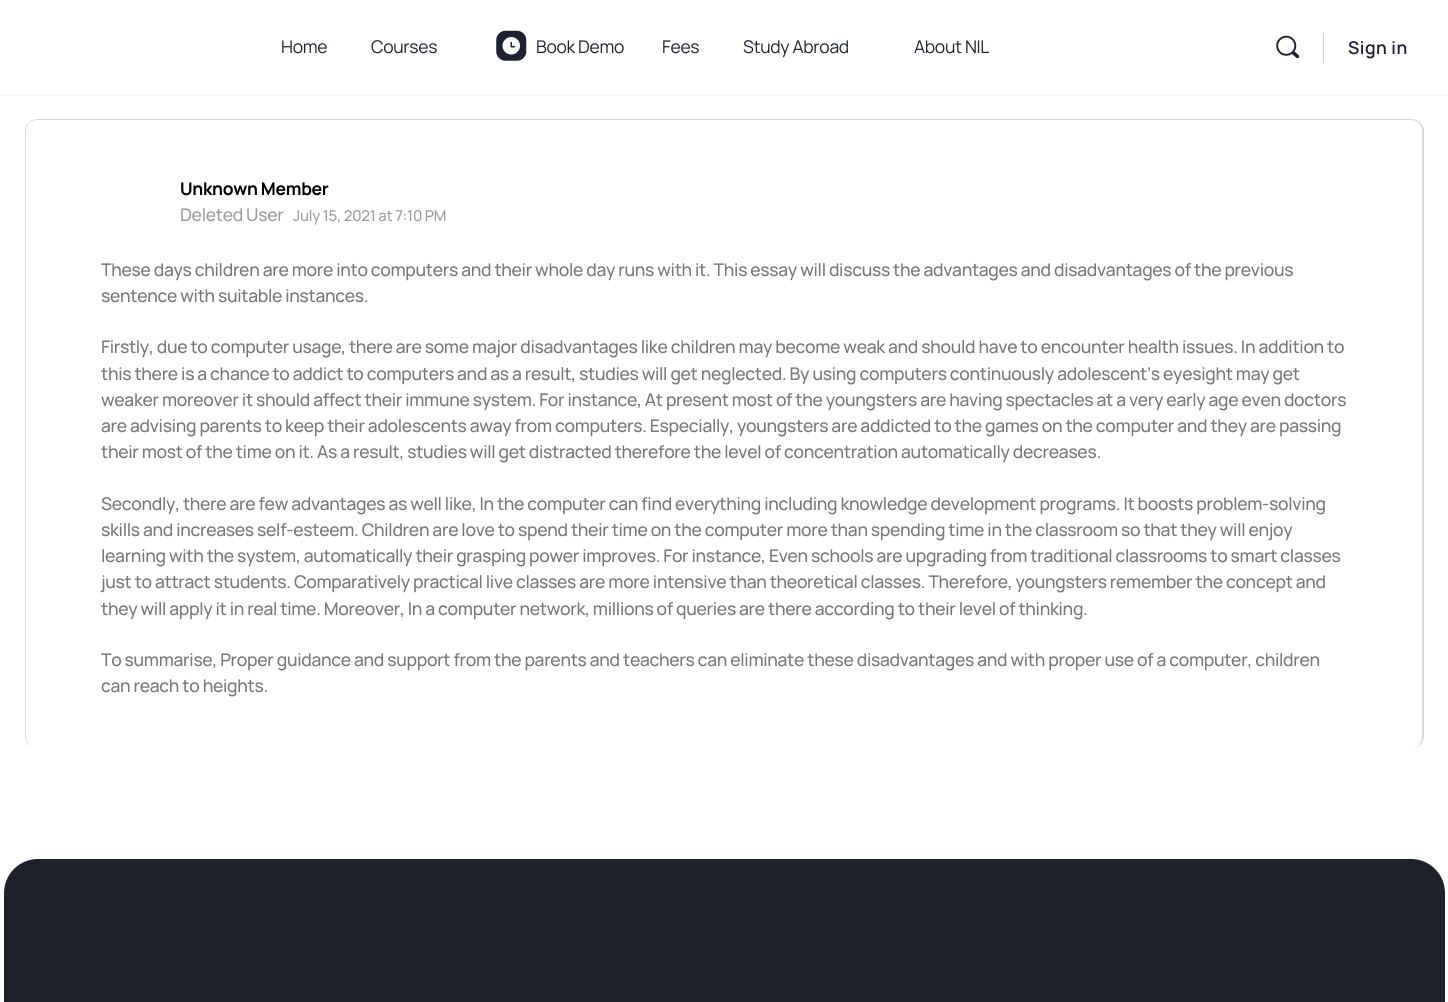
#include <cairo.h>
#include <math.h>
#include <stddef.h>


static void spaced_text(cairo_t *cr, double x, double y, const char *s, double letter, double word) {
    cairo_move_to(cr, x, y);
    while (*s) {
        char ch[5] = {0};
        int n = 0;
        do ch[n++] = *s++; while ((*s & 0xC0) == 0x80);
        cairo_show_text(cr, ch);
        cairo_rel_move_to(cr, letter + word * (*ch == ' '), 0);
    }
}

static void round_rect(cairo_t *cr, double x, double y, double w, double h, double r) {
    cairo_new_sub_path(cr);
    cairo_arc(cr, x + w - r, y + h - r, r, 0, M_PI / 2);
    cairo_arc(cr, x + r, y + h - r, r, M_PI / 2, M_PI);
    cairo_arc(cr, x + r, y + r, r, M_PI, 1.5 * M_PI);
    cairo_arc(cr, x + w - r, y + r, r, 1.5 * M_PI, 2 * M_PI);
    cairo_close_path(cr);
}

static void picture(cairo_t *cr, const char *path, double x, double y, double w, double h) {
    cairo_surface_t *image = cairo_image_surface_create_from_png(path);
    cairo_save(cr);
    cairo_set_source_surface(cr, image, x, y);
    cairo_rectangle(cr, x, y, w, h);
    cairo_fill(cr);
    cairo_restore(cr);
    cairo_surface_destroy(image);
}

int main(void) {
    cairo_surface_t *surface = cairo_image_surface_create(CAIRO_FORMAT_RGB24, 1448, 1002);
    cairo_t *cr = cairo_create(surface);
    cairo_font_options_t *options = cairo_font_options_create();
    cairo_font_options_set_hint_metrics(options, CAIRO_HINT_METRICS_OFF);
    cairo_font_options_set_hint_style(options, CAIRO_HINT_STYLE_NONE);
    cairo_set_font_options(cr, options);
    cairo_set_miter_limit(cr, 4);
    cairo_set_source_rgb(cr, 1, 1, 1);
    cairo_paint(cr);
    cairo_set_source_rgb(cr, 0.965, 0.969, 0.973);
    cairo_new_path(cr);
    cairo_move_to(cr, 0, 95);
    cairo_line_to(cr, 0, 96);
    cairo_line_to(cr, 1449, 96);
    cairo_line_to(cr, 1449, 1);
    cairo_line_to(cr, 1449, 95);
    cairo_close_path(cr);
    cairo_fill(cr);
    cairo_select_font_face(cr, "Manrope", CAIRO_FONT_SLANT_NORMAL, CAIRO_FONT_WEIGHT_NORMAL);
    cairo_set_font_size(cr, 17.5);
    cairo_set_source_rgb(cr, 0.118, 0.129, 0.196);
    spaced_text(cr, 281, 53, "Home", -0.3, 0);
    spaced_text(cr, 371, 53, "Courses", -0.3, 0);
    picture(cr, "img1.png", 496, 30, 31, 31);
    spaced_text(cr, 536, 53, "Book Demo", -0.3, 0);
    spaced_text(cr, 662, 53, "Fees", -0.3, 0);
    spaced_text(cr, 743, 53, "Study Abroad", -0.3, 0);
    spaced_text(cr, 914, 53, "About NIL", -0.3, 0);
    picture(cr, "img2.png", 1276, 35, 24, 24);
    cairo_set_source_rgb(cr, 0.824, 0.827, 0.839);
    cairo_rectangle(cr, 1323, 33, 1, 30);
    cairo_fill(cr);
    cairo_select_font_face(cr, "Manrope SemiBold", CAIRO_FONT_SLANT_NORMAL, CAIRO_FONT_WEIGHT_NORMAL);
    cairo_set_source_rgb(cr, 0.118, 0.129, 0.196);
    spaced_text(cr, 1348, 54, "Sign in", 0.5, 0);
    cairo_set_source_rgb(cr, 0.839, 0.851, 0.867);
    cairo_set_fill_rule(cr, CAIRO_FILL_RULE_EVEN_ODD);
    cairo_new_path(cr);
    cairo_move_to(cr, 38, 119);
    cairo_line_to(cr, 1411, 119);
    cairo_curve_to(cr, 1418, 119, 1424, 124, 1424, 131);
    cairo_line_to(cr, 1424, 736);
    cairo_curve_to(cr, 1424, 743, 1418, 749, 1411, 749);
    cairo_line_to(cr, 38, 749);
    cairo_curve_to(cr, 31, 749, 25, 743, 25, 736);
    cairo_line_to(cr, 25, 131);
    cairo_curve_to(cr, 25, 124, 31, 119, 38, 119);
    cairo_close_path(cr);
    cairo_move_to(cr, 38, 120);
    cairo_line_to(cr, 1411, 120);
    cairo_curve_to(cr, 1417, 120, 1422, 125, 1422, 131);
    cairo_line_to(cr, 1422, 736);
    cairo_curve_to(cr, 1422, 743, 1417, 749, 1411, 749);
    cairo_line_to(cr, 38, 749);
    cairo_curve_to(cr, 31, 749, 26, 743, 26, 736);
    cairo_line_to(cr, 26, 131);
    cairo_curve_to(cr, 26, 125, 31, 120, 38, 120);
    cairo_close_path(cr);
    cairo_fill(cr);
    cairo_select_font_face(cr, "Manrope", CAIRO_FONT_SLANT_NORMAL, CAIRO_FONT_WEIGHT_BOLD);
    cairo_set_source_rgb(cr, 0, 0, 0);
    spaced_text(cr, 180, 195, "Unknown Member", -0.3, 0);
    cairo_select_font_face(cr, "Manrope Medium", CAIRO_FONT_SLANT_NORMAL, CAIRO_FONT_WEIGHT_NORMAL);
    cairo_set_source_rgb(cr, 0.608, 0.612, 0.624);
    spaced_text(cr, 180, 221, "Deleted User", -0.3, 0);
    cairo_set_font_size(cr, 15);
    spaced_text(cr, 293, 221, "July 15, 2021 at 7:10 PM", -0.25, 0);
    cairo_set_font_size(cr, 17.5);
    cairo_set_source_rgb(cr, 0.467, 0.467, 0.467);
    spaced_text(cr, 101, 276, "These days children are more into computers and their whole day runs with it. This essay will discuss the advantages and disadvantages of the previous", -0.3, 0);
    spaced_text(cr, 101, 302, "sentence with suitable instances.", -0.3, 0);
    spaced_text(cr, 101, 353, "Firstly, due to computer usage, there are some major disadvantages like children may become weak and should have to encounter health issues. In addition to", -0.3, 0);
    spaced_text(cr, 101, 380, "this there is a chance to addict to computers and as a result, studies will get neglected. By using computers continuously adolescent’s eyesight may get", -0.3, 0);
    spaced_text(cr, 101, 406, "weaker moreover it should affect their immune system. For instance, At present most of the youngsters are having spectacles at a very early age even doctors", -0.3, 0);
    spaced_text(cr, 101, 432, "are advising parents to keep their adolescents away from computers. Especially, youngsters are addicted to the games on the computer and they are passing", -0.3, 0);
    spaced_text(cr, 101, 458, "their most of the time on it. As a result, studies will get distracted therefore the level of concentration automatically decreases.", -0.3, 0);
    spaced_text(cr, 101, 510, "Secondly, there are few advantages as well like, In the computer can find everything including knowledge development programs. It boosts problem-solving", -0.3, 0);
    spaced_text(cr, 101, 536, "skills and increases self-esteem. Children are love to spend their time on the computer more than spending time in the classroom so that they will enjoy", -0.3, 0);
    spaced_text(cr, 101, 562, "learning with the system, automatically their grasping power improves. For instance, Even schools are upgrading from traditional classrooms to smart classes", -0.3, 0);
    spaced_text(cr, 101, 588, "just to attract students. Comparatively practical live classes are more intensive than theoretical classes. Therefore, youngsters remember the concept and", -0.3, 0);
    spaced_text(cr, 101, 615, "they will apply it in real time. Moreover, In a computer network, millions of queries are there according to their level of thinking.", -0.3, 0);
    spaced_text(cr, 101, 666, "To summarise, Proper guidance and support from the parents and teachers can eliminate these disadvantages and with proper use of a computer, children", -0.3, 0);
    spaced_text(cr, 101, 692, "can reach to heights.", -0.3, 0);
    cairo_set_source_rgb(cr, 0.118, 0.125, 0.173);
    round_rect(cr, 2, 857, 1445, 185, 36);
    cairo_fill_preserve(cr);
    cairo_set_source_rgb(cr, 1, 1, 1);
    cairo_set_line_width(cr, 4);
    cairo_stroke(cr);
    cairo_surface_write_to_png(surface, "page.png");
    cairo_font_options_destroy(options);
    cairo_destroy(cr);
    cairo_surface_destroy(surface);
    return 0;
}
